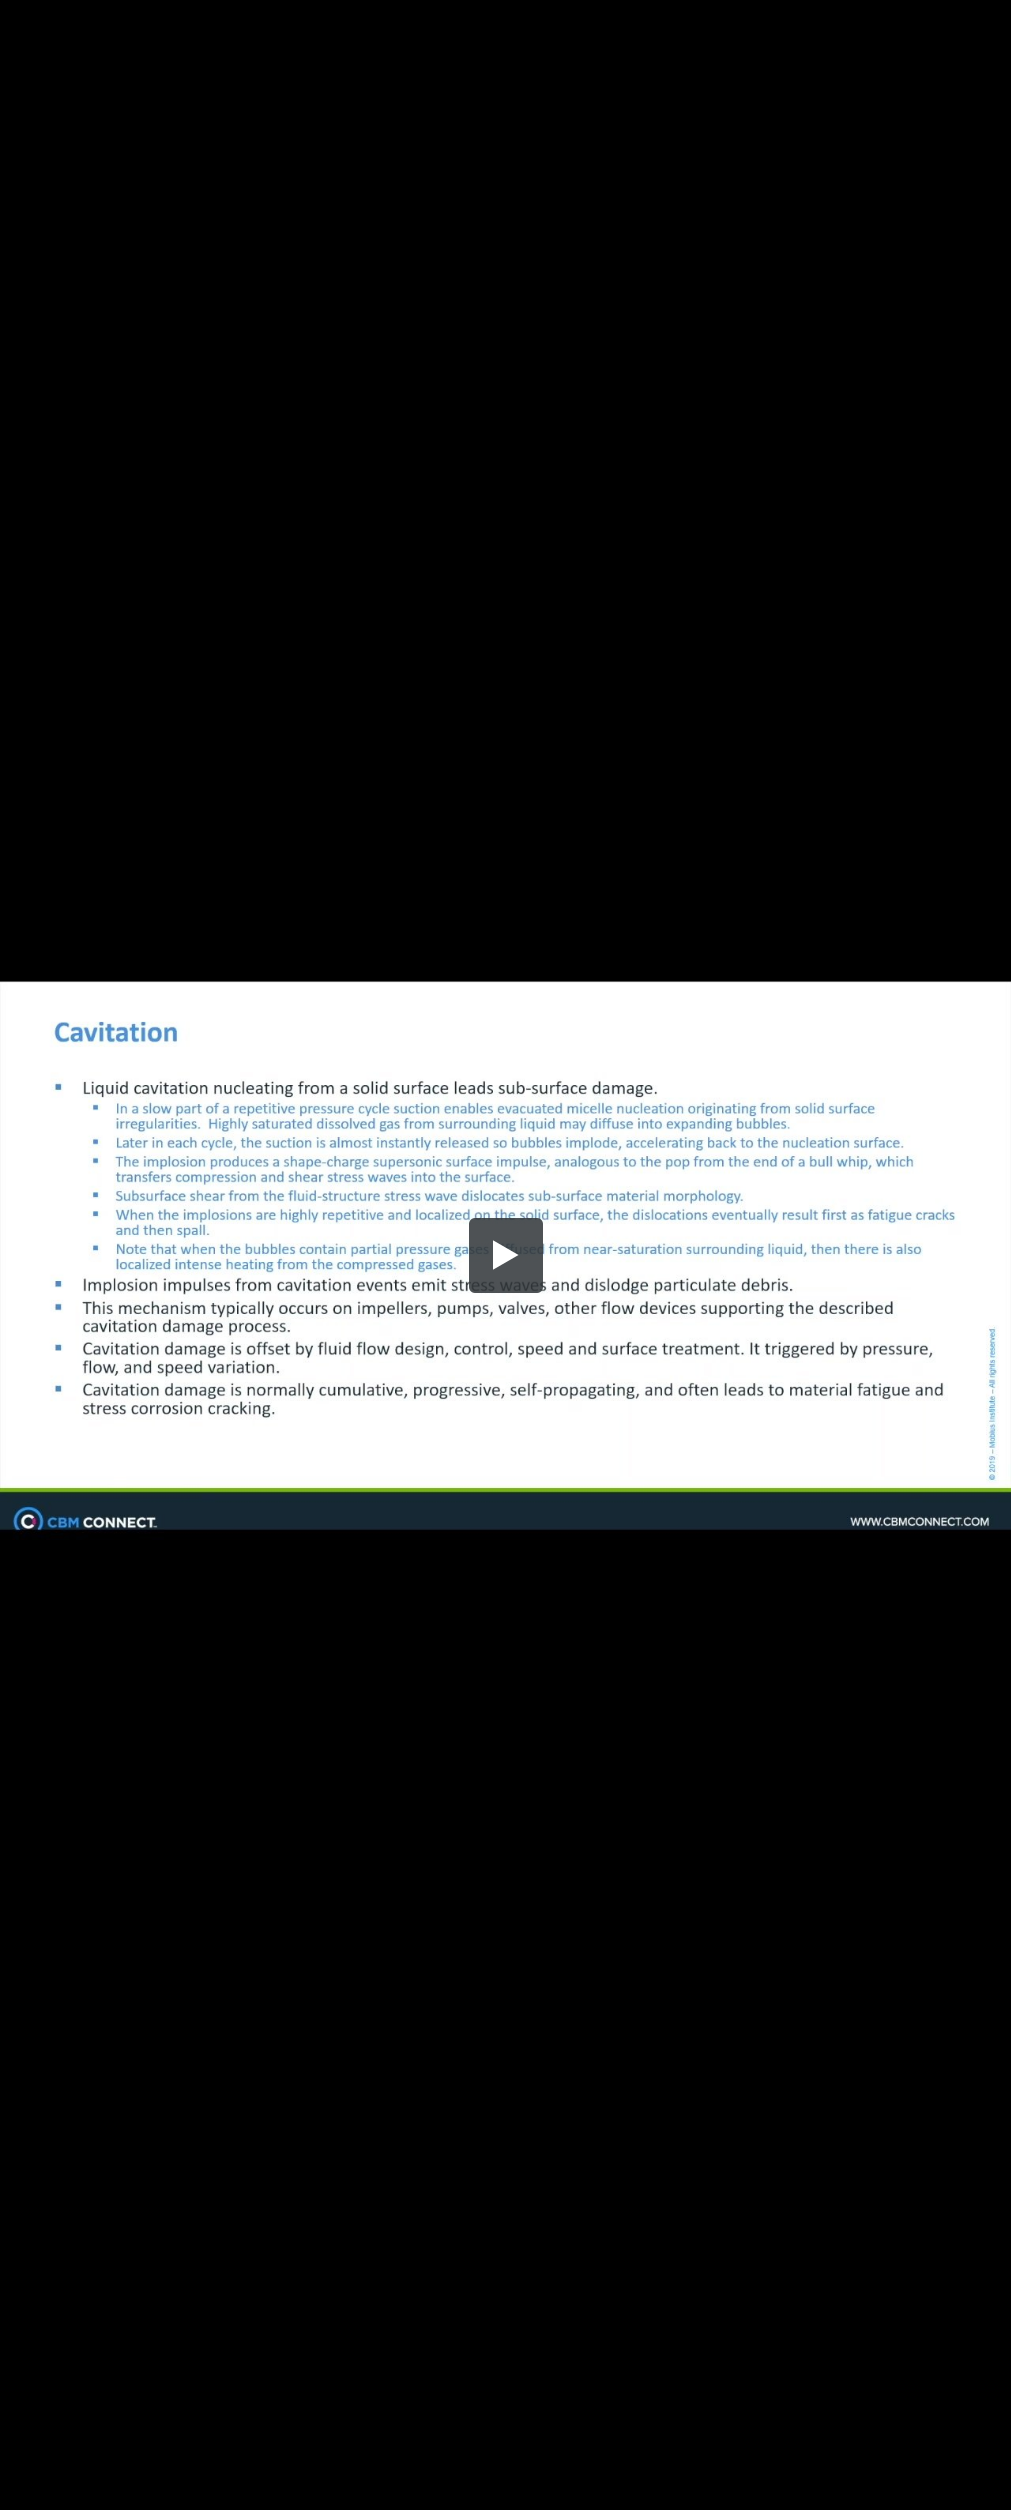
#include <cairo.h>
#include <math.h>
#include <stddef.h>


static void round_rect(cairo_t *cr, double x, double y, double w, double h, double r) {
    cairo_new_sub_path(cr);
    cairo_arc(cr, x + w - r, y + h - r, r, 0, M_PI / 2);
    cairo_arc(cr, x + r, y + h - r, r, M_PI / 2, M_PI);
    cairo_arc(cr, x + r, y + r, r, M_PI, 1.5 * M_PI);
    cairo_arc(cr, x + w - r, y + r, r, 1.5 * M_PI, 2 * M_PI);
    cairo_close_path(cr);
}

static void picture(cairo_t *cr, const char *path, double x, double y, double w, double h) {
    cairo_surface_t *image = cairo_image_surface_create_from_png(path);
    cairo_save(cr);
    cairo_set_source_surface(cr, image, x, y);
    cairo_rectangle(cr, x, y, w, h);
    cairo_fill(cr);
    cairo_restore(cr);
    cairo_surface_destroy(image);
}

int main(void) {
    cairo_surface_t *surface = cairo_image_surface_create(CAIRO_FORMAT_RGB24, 1011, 2510);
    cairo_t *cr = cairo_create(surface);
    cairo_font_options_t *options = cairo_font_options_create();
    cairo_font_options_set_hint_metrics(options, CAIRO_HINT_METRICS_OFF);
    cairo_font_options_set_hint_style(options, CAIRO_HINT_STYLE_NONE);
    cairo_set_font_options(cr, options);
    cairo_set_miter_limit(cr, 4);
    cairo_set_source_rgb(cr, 0, 0, 0);
    cairo_paint(cr);
    picture(cr, "img1.png", 0, 981, 1011, 559);
    cairo_set_source_rgba(cr, 0.184, 0.204, 0.216, 0.85);
    round_rect(cr, 469, 1218, 74, 75, 6);
    cairo_fill(cr);
    cairo_save(cr);
    cairo_rectangle(cr, 493, 1240, 26, 30);
    cairo_clip(cr);
    cairo_set_source_rgb(cr, 1, 1, 1);
    cairo_new_path(cr);
    cairo_move_to(cr, 492.5, 1240);
    cairo_line_to(cr, 492.5, 1270);
    cairo_line_to(cr, 518.5, 1255);
    cairo_close_path(cr);
    cairo_fill(cr);
    cairo_restore(cr);
    cairo_surface_write_to_png(surface, "page.png");
    cairo_font_options_destroy(options);
    cairo_destroy(cr);
    cairo_surface_destroy(surface);
    return 0;
}
